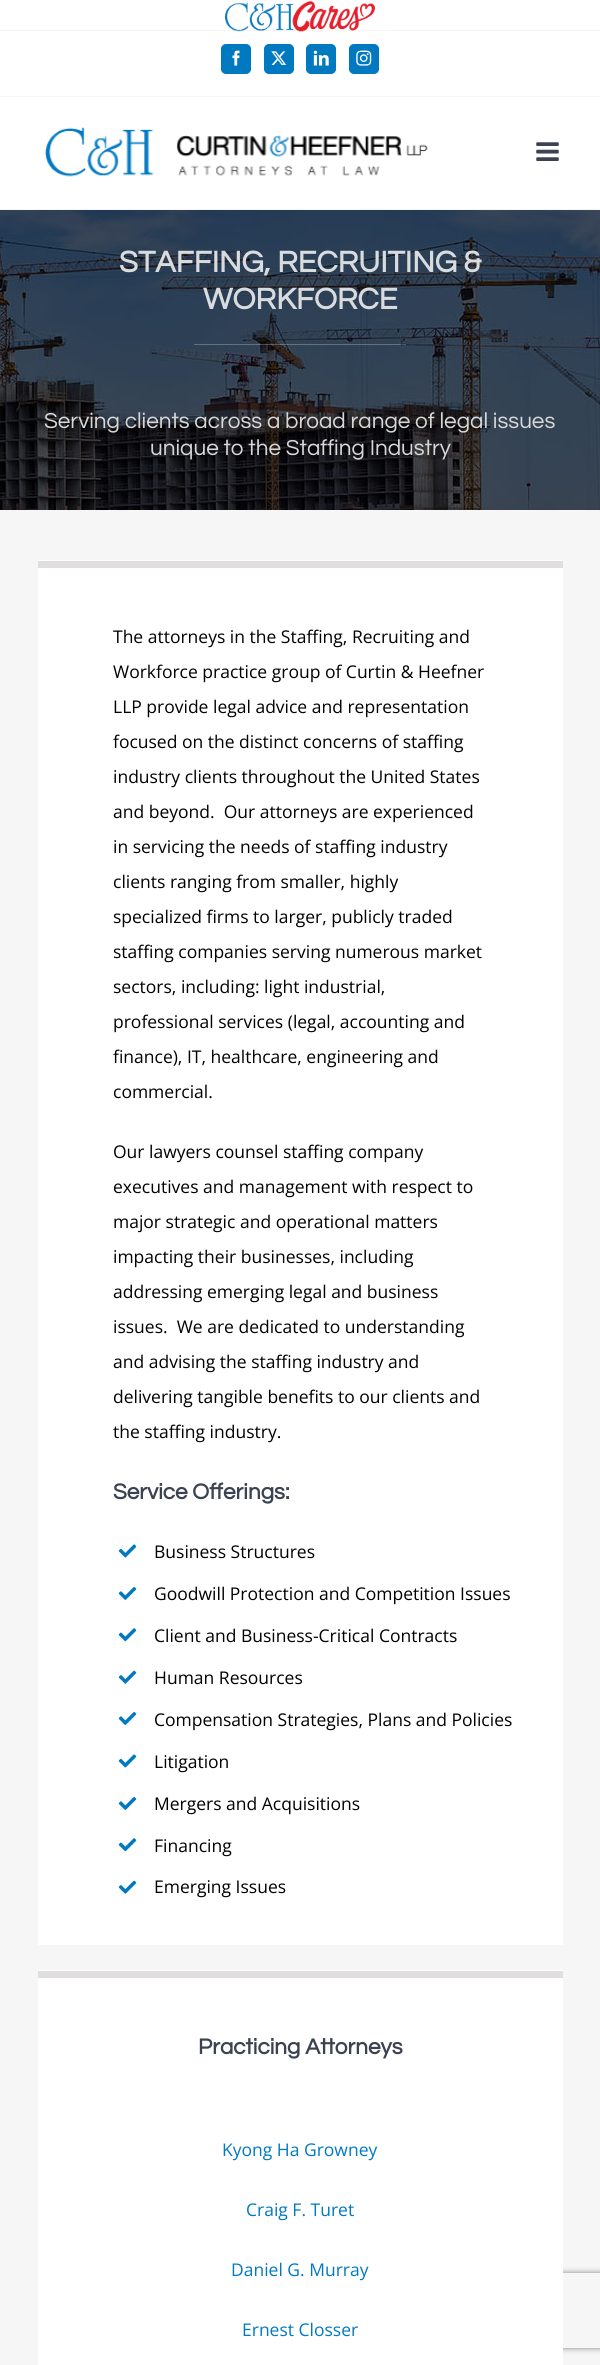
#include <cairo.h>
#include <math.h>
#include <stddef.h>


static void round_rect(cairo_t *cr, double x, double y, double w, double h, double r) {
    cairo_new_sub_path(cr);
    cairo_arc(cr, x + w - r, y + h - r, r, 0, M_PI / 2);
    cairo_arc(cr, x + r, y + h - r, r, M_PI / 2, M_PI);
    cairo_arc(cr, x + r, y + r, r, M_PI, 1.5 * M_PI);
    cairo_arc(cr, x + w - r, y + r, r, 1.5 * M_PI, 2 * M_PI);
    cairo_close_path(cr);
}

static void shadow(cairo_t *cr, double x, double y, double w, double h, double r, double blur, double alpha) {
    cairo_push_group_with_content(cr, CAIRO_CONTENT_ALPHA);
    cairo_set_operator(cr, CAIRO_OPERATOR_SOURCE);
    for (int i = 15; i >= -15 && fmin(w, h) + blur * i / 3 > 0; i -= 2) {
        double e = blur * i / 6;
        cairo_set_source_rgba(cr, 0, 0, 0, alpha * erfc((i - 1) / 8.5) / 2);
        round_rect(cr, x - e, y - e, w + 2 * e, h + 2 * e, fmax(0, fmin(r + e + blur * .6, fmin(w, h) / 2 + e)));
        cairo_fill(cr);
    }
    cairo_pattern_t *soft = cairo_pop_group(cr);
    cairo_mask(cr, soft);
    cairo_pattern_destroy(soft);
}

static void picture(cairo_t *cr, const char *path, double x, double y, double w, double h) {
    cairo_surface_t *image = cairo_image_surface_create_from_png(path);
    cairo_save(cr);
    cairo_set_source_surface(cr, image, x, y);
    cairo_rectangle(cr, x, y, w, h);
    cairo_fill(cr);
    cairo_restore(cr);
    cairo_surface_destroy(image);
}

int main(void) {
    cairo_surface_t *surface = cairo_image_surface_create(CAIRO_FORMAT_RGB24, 600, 2365);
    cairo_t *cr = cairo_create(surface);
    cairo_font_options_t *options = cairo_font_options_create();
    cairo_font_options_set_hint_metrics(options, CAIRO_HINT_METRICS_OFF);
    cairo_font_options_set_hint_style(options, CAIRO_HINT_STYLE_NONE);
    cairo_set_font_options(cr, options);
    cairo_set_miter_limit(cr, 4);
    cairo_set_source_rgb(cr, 0.961, 0.961, 0.961);
    cairo_paint(cr);
    cairo_set_source_rgb(cr, 1, 1, 1);
    cairo_rectangle(cr, 0, 0, 600, 209);
    cairo_fill(cr);
    cairo_set_source_rgb(cr, 0.961, 0.961, 0.961);
    cairo_rectangle(cr, 0, 96, 600, 1);
    cairo_fill(cr);
    cairo_rectangle(cr, 0, 30, 600, 1);
    cairo_fill(cr);
    picture(cr, "img1.png", 225, 1, 150, 31);
    cairo_set_source_rgb(cr, 0, 0.475, 0.757);
    round_rect(cr, 221.5, 44.5, 29, 29, 4.5);
    cairo_fill_preserve(cr);
    cairo_set_line_width(cr, 1);
    cairo_stroke(cr);
    picture(cr, "img2.png", 232, 50, 8, 16);
    round_rect(cr, 264.5, 44.5, 29, 29, 4.5);
    cairo_fill_preserve(cr);
    cairo_stroke(cr);
    picture(cr, "img3.png", 271, 51, 16, 14);
    round_rect(cr, 306.5, 44.5, 29, 29, 4.5);
    cairo_fill_preserve(cr);
    cairo_stroke(cr);
    picture(cr, "img4.png", 313, 50, 16, 16);
    round_rect(cr, 349.5, 44.5, 29, 29, 4.5);
    cairo_fill_preserve(cr);
    cairo_stroke(cr);
    picture(cr, "img5.png", 356, 50, 16, 16);
    picture(cr, "img6.png", 44, 127, 384, 50);
    picture(cr, "img7.png", 536, 142, 23, 19);
    picture(cr, "img8.png", 0, 210, 600, 300);
    cairo_select_font_face(cr, "Questrial", CAIRO_FONT_SLANT_NORMAL, CAIRO_FONT_WEIGHT_BOLD);
    cairo_set_font_size(cr, 30.8);
    cairo_set_source_rgb(cr, 0.851, 0.863, 0.875);
    cairo_move_to(cr, 119, 272);
    cairo_show_text(cr, "STAFFING, RECRUITING &");
    cairo_move_to(cr, 203, 309);
    cairo_show_text(cr, "WORKFORCE");
    cairo_set_source_rgba(cr, 1, 1, 1, 0.25);
    cairo_rectangle(cr, 194, 344, 212, 1);
    cairo_fill(cr);
    cairo_select_font_face(cr, "Questrial", CAIRO_FONT_SLANT_NORMAL, CAIRO_FONT_WEIGHT_NORMAL);
    cairo_set_font_size(cr, 22.5);
    cairo_set_source_rgb(cr, 0.843, 0.847, 0.851);
    cairo_move_to(cr, 44, 428);
    cairo_show_text(cr, "Serving clients across a broad range of legal issues");
    cairo_move_to(cr, 150, 455);
    cairo_show_text(cr, "unique to the Staffing Industry");
    cairo_set_source_rgb(cr, 1, 1, 1);
    cairo_rectangle(cr, 38, 560, 525, 1385);
    cairo_fill(cr);
    cairo_set_source_rgb(cr, 0.878, 0.871, 0.871);
    cairo_rectangle(cr, 38, 561, 525, 7);
    cairo_fill(cr);
    cairo_select_font_face(cr, "Open Sans", CAIRO_FONT_SLANT_NORMAL, CAIRO_FONT_WEIGHT_NORMAL);
    cairo_set_font_size(cr, 17.5);
    cairo_set_source_rgb(cr, 0, 0, 0);
    cairo_move_to(cr, 113, 643);
    cairo_show_text(cr, "The attorneys in the Staffing, Recruiting and");
    cairo_move_to(cr, 113, 678);
    cairo_show_text(cr, "Workforce practice group of Curtin & Heefner");
    cairo_move_to(cr, 113, 713);
    cairo_show_text(cr, "LLP provide legal advice and representation");
    cairo_move_to(cr, 113, 748);
    cairo_show_text(cr, "focused on the distinct concerns of staffing");
    cairo_move_to(cr, 113, 783);
    cairo_show_text(cr, "industry clients throughout the United States");
    cairo_move_to(cr, 113, 818);
    cairo_show_text(cr, "and beyond.  Our attorneys are experienced");
    cairo_move_to(cr, 113, 853);
    cairo_show_text(cr, "in servicing the needs of staffing industry");
    cairo_move_to(cr, 113, 888);
    cairo_show_text(cr, "clients ranging from smaller, highly");
    cairo_move_to(cr, 113, 923);
    cairo_show_text(cr, "specialized firms to larger, publicly traded");
    cairo_move_to(cr, 113, 958);
    cairo_show_text(cr, "staffing companies serving numerous market");
    cairo_move_to(cr, 113, 993);
    cairo_show_text(cr, "sectors, including: light industrial,");
    cairo_move_to(cr, 113, 1028);
    cairo_show_text(cr, "professional services (legal, accounting and");
    cairo_move_to(cr, 113, 1063);
    cairo_show_text(cr, "finance), IT, healthcare, engineering and");
    cairo_move_to(cr, 113, 1098);
    cairo_show_text(cr, "commercial.");
    cairo_move_to(cr, 113, 1158);
    cairo_show_text(cr, "Our lawyers counsel staffing company");
    cairo_move_to(cr, 113, 1193);
    cairo_show_text(cr, "executives and management with respect to");
    cairo_move_to(cr, 113, 1228);
    cairo_show_text(cr, "major strategic and operational matters");
    cairo_move_to(cr, 113, 1263);
    cairo_show_text(cr, "impacting their businesses, including");
    cairo_move_to(cr, 113, 1298);
    cairo_show_text(cr, "addressing emerging legal and business");
    cairo_move_to(cr, 113, 1333);
    cairo_show_text(cr, "issues.  We are dedicated to understanding");
    cairo_move_to(cr, 113, 1368);
    cairo_show_text(cr, "and advising the staffing industry and");
    cairo_move_to(cr, 113, 1403);
    cairo_show_text(cr, "delivering tangible benefits to our clients and");
    cairo_move_to(cr, 113, 1438);
    cairo_show_text(cr, "the staffing industry.");
    cairo_select_font_face(cr, "Questrial", CAIRO_FONT_SLANT_NORMAL, CAIRO_FONT_WEIGHT_BOLD);
    cairo_set_font_size(cr, 22.5);
    cairo_set_source_rgb(cr, 0.231, 0.259, 0.318);
    cairo_move_to(cr, 113, 1499);
    cairo_show_text(cr, "Service Offerings:");
    picture(cr, "img9.png", 118, 1544, 19, 14);
    cairo_select_font_face(cr, "Open Sans", CAIRO_FONT_SLANT_NORMAL, CAIRO_FONT_WEIGHT_NORMAL);
    cairo_set_font_size(cr, 17.5);
    cairo_set_source_rgb(cr, 0, 0, 0);
    cairo_move_to(cr, 154, 1558);
    cairo_show_text(cr, "Business Structures");
    picture(cr, "img10.png", 118, 1587, 19, 13);
    cairo_move_to(cr, 154, 1600);
    cairo_show_text(cr, "Goodwill Protection and Competition Issues");
    picture(cr, "img11.png", 118, 1628, 19, 14);
    cairo_move_to(cr, 154, 1642);
    cairo_show_text(cr, "Client and Business-Critical Contracts");
    picture(cr, "img12.png", 118, 1670, 19, 14);
    cairo_move_to(cr, 154, 1684);
    cairo_show_text(cr, "Human Resources");
    picture(cr, "img10.png", 118, 1712, 19, 13);
    cairo_move_to(cr, 154, 1726);
    cairo_show_text(cr, "Compensation Strategies, Plans and Policies");
    picture(cr, "img9.png", 118, 1754, 19, 14);
    cairo_move_to(cr, 154, 1768);
    cairo_show_text(cr, "Litigation");
    picture(cr, "img10.png", 118, 1797, 19, 13);
    cairo_move_to(cr, 154, 1810);
    cairo_show_text(cr, "Mergers and Acquisitions");
    picture(cr, "img11.png", 118, 1838, 19, 14);
    cairo_move_to(cr, 154, 1852);
    cairo_show_text(cr, "Financing");
    picture(cr, "img12.png", 118, 1880, 19, 14);
    cairo_move_to(cr, 154, 1893);
    cairo_show_text(cr, "Emerging Issues");
    cairo_save(cr);
    cairo_set_fill_rule(cr, CAIRO_FILL_RULE_EVEN_ODD);
    cairo_new_path(cr);
    cairo_move_to(cr, 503, 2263);
    cairo_line_to(cr, 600, 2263);
    cairo_line_to(cr, 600, 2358);
    cairo_line_to(cr, 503, 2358);
    cairo_close_path(cr);
    cairo_move_to(cr, 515.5, 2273);
    cairo_line_to(cr, 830.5, 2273);
    cairo_curve_to(cr, 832, 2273, 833, 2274, 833, 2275.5);
    cairo_line_to(cr, 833, 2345.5);
    cairo_curve_to(cr, 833, 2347, 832, 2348, 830.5, 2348);
    cairo_line_to(cr, 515.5, 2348);
    cairo_curve_to(cr, 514, 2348, 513, 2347, 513, 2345.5);
    cairo_line_to(cr, 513, 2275.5);
    cairo_curve_to(cr, 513, 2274, 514, 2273, 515.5, 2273);
    cairo_close_path(cr);
    cairo_clip(cr);
    cairo_set_source_rgb(cr, 0.502, 0.502, 0.502);
    shadow(cr, 513, 2273, 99, 75, 2.5, 3, 1);
    cairo_restore(cr);
    cairo_set_source_rgb(cr, 1, 1, 1);
    cairo_rectangle(cr, 38, 1970, 525, 395);
    cairo_fill(cr);
    cairo_set_source_rgb(cr, 0.878, 0.871, 0.871);
    cairo_rectangle(cr, 38, 1971, 525, 7);
    cairo_fill(cr);
    cairo_select_font_face(cr, "Questrial", CAIRO_FONT_SLANT_NORMAL, CAIRO_FONT_WEIGHT_BOLD);
    cairo_set_font_size(cr, 22.5);
    cairo_set_source_rgb(cr, 0.231, 0.259, 0.318);
    cairo_move_to(cr, 198, 2054);
    cairo_show_text(cr, "Practicing Attorneys");
    cairo_select_font_face(cr, "Open Sans", CAIRO_FONT_SLANT_NORMAL, CAIRO_FONT_WEIGHT_NORMAL);
    cairo_set_font_size(cr, 17.5);
    cairo_set_source_rgb(cr, 0, 0.475, 0.757);
    cairo_move_to(cr, 222, 2156);
    cairo_show_text(cr, "Kyong Ha Growney");
    cairo_move_to(cr, 246, 2216);
    cairo_show_text(cr, "Craig F. Turet");
    cairo_move_to(cr, 231, 2276);
    cairo_show_text(cr, "Daniel G. Murray");
    cairo_move_to(cr, 242, 2336);
    cairo_show_text(cr, "Ernest Closser");
    cairo_surface_write_to_png(surface, "page.png");
    cairo_font_options_destroy(options);
    cairo_destroy(cr);
    cairo_surface_destroy(surface);
    return 0;
}
